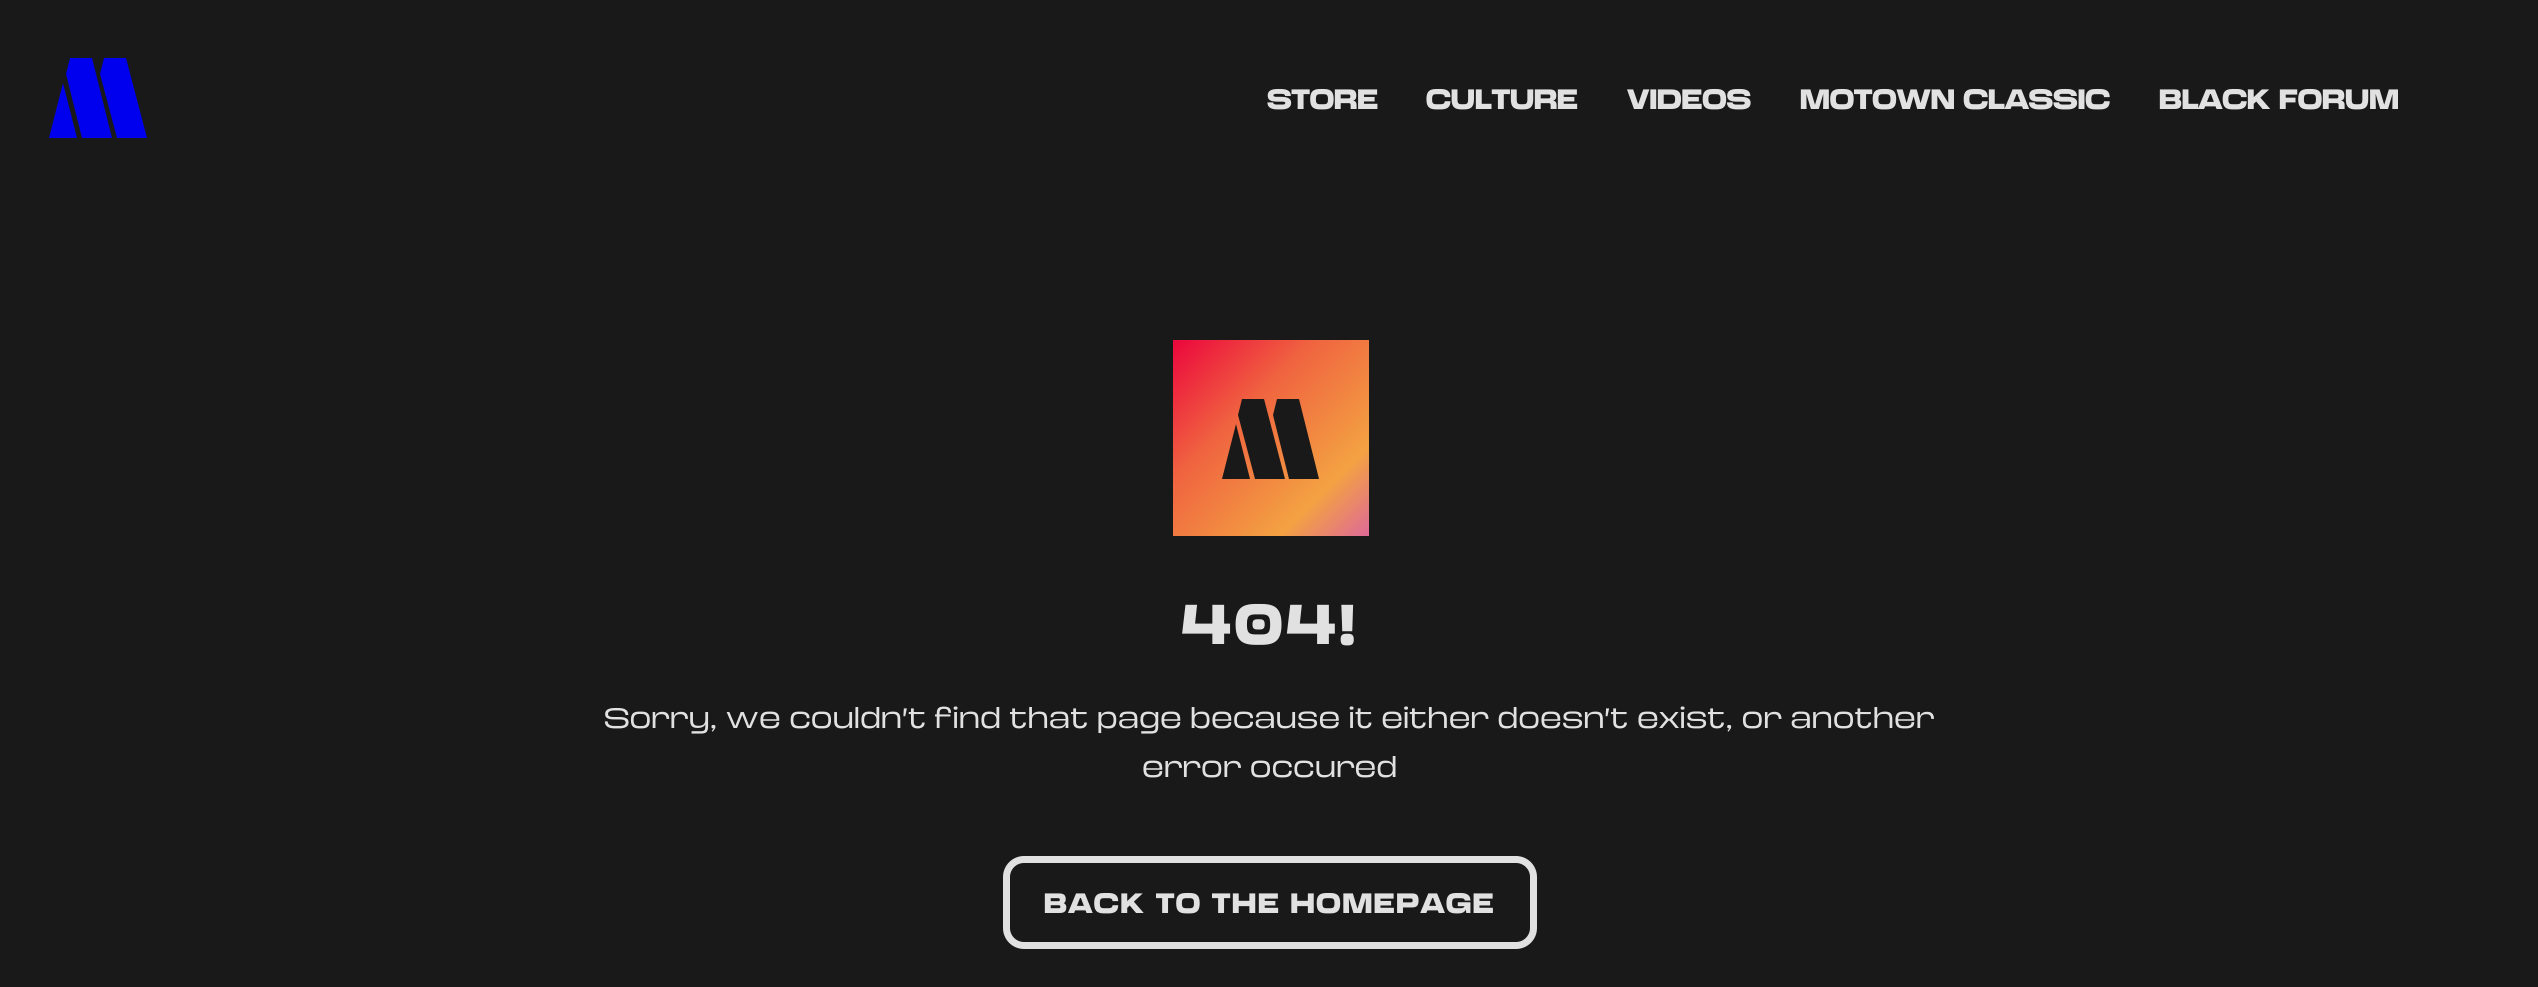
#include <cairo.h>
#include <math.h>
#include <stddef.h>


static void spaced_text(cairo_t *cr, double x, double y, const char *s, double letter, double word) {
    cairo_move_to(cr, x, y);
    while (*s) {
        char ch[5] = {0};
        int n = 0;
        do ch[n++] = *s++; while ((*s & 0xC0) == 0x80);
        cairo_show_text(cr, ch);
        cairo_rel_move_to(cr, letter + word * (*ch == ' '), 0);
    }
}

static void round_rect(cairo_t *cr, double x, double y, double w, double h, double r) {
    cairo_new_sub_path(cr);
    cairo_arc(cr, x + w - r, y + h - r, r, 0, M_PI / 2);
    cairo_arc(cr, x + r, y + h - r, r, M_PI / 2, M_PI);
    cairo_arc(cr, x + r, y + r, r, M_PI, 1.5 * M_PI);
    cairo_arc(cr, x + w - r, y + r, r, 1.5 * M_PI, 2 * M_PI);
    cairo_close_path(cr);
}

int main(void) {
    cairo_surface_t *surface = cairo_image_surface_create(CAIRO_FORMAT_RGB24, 2538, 987);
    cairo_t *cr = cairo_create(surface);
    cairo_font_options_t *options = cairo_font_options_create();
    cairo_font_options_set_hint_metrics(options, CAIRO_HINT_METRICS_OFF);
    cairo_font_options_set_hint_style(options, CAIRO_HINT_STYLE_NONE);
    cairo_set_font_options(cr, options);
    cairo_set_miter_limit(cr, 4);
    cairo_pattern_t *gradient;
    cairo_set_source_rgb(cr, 0.098, 0.098, 0.098);
    cairo_paint(cr);
    cairo_set_source_rgb(cr, 0, 0, 0.933);
    cairo_set_fill_rule(cr, CAIRO_FILL_RULE_EVEN_ODD);
    cairo_new_path(cr);
    cairo_move_to(cr, 126, 58);
    cairo_line_to(cr, 147, 138);
    cairo_line_to(cr, 117, 138);
    cairo_line_to(cr, 100, 74);
    cairo_line_to(cr, 104, 58);
    cairo_close_path(cr);
    cairo_move_to(cr, 92, 58);
    cairo_line_to(cr, 112, 138);
    cairo_line_to(cr, 82, 138);
    cairo_line_to(cr, 74, 106);
    cairo_line_to(cr, 66, 74);
    cairo_line_to(cr, 70, 58);
    cairo_close_path(cr);
    cairo_move_to(cr, 63, 83);
    cairo_line_to(cr, 77, 138);
    cairo_line_to(cr, 49, 138);
    cairo_close_path(cr);
    cairo_fill(cr);
    cairo_select_font_face(cr, "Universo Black", CAIRO_FONT_SLANT_NORMAL, CAIRO_FONT_WEIGHT_NORMAL);
    cairo_set_font_size(cr, 28);
    cairo_set_source_rgb(cr, 0.882, 0.882, 0.882);
    cairo_move_to(cr, 1267, 109);
    cairo_show_text(cr, "STORE");
    cairo_move_to(cr, 1426, 109);
    cairo_show_text(cr, "CULTURE");
    cairo_move_to(cr, 1627, 109);
    cairo_show_text(cr, "VIDEOS");
    cairo_move_to(cr, 1800, 109);
    cairo_show_text(cr, "MOTOWN CLASSIC");
    cairo_move_to(cr, 2159, 109);
    cairo_show_text(cr, "BLACK FORUM");
    gradient = cairo_pattern_create_linear(1173, 340, 1369, 536);
    cairo_pattern_add_color_stop_rgba(gradient, 0, 0.925, 0.024, 0.239, 1);
    cairo_pattern_add_color_stop_rgba(gradient, 0.36, 0.941, 0.392, 0.251, 1);
    cairo_pattern_add_color_stop_rgba(gradient, 0.77, 0.953, 0.635, 0.259, 1);
    cairo_pattern_add_color_stop_rgba(gradient, 1, 0.871, 0.412, 0.596, 1);
    cairo_set_source(cr, gradient);
    cairo_pattern_destroy(gradient);
    cairo_rectangle(cr, 1173, 340, 196, 196);
    cairo_fill(cr);
    cairo_set_source_rgb(cr, 0.098, 0.098, 0.098);
    cairo_new_path(cr);
    cairo_move_to(cr, 1299, 399);
    cairo_line_to(cr, 1319, 479);
    cairo_line_to(cr, 1289, 479);
    cairo_line_to(cr, 1273, 415);
    cairo_line_to(cr, 1277, 399);
    cairo_close_path(cr);
    cairo_move_to(cr, 1264, 399);
    cairo_line_to(cr, 1285, 479);
    cairo_line_to(cr, 1255, 479);
    cairo_line_to(cr, 1246, 445);
    cairo_line_to(cr, 1238, 415);
    cairo_line_to(cr, 1242, 399);
    cairo_close_path(cr);
    cairo_move_to(cr, 1236, 424);
    cairo_line_to(cr, 1250, 479);
    cairo_line_to(cr, 1222, 479);
    cairo_close_path(cr);
    cairo_fill(cr);
    cairo_set_font_size(cr, 56);
    cairo_set_source_rgb(cr, 0.882, 0.882, 0.882);
    spaced_text(cr, 1181, 644, "404!", 3.5, 0);
    cairo_select_font_face(cr, "Universo", CAIRO_FONT_SLANT_NORMAL, CAIRO_FONT_WEIGHT_NORMAL);
    cairo_set_font_size(cr, 28);
    cairo_move_to(cr, 604, 728);
    cairo_show_text(cr, "Sorry, we couldn’t find that page because it either doesn’t exist, or another");
    cairo_move_to(cr, 1142, 777);
    cairo_show_text(cr, "error occured");
    round_rect(cr, 1006.5, 859.5, 527, 86, 17.5);
    cairo_set_line_width(cr, 7);
    cairo_stroke(cr);
    cairo_select_font_face(cr, "Universo Black", CAIRO_FONT_SLANT_NORMAL, CAIRO_FONT_WEIGHT_NORMAL);
    spaced_text(cr, 1044, 913, "BACK TO THE HOMEPAGE", 1.75, 0);
    cairo_surface_write_to_png(surface, "page.png");
    cairo_font_options_destroy(options);
    cairo_destroy(cr);
    cairo_surface_destroy(surface);
    return 0;
}
